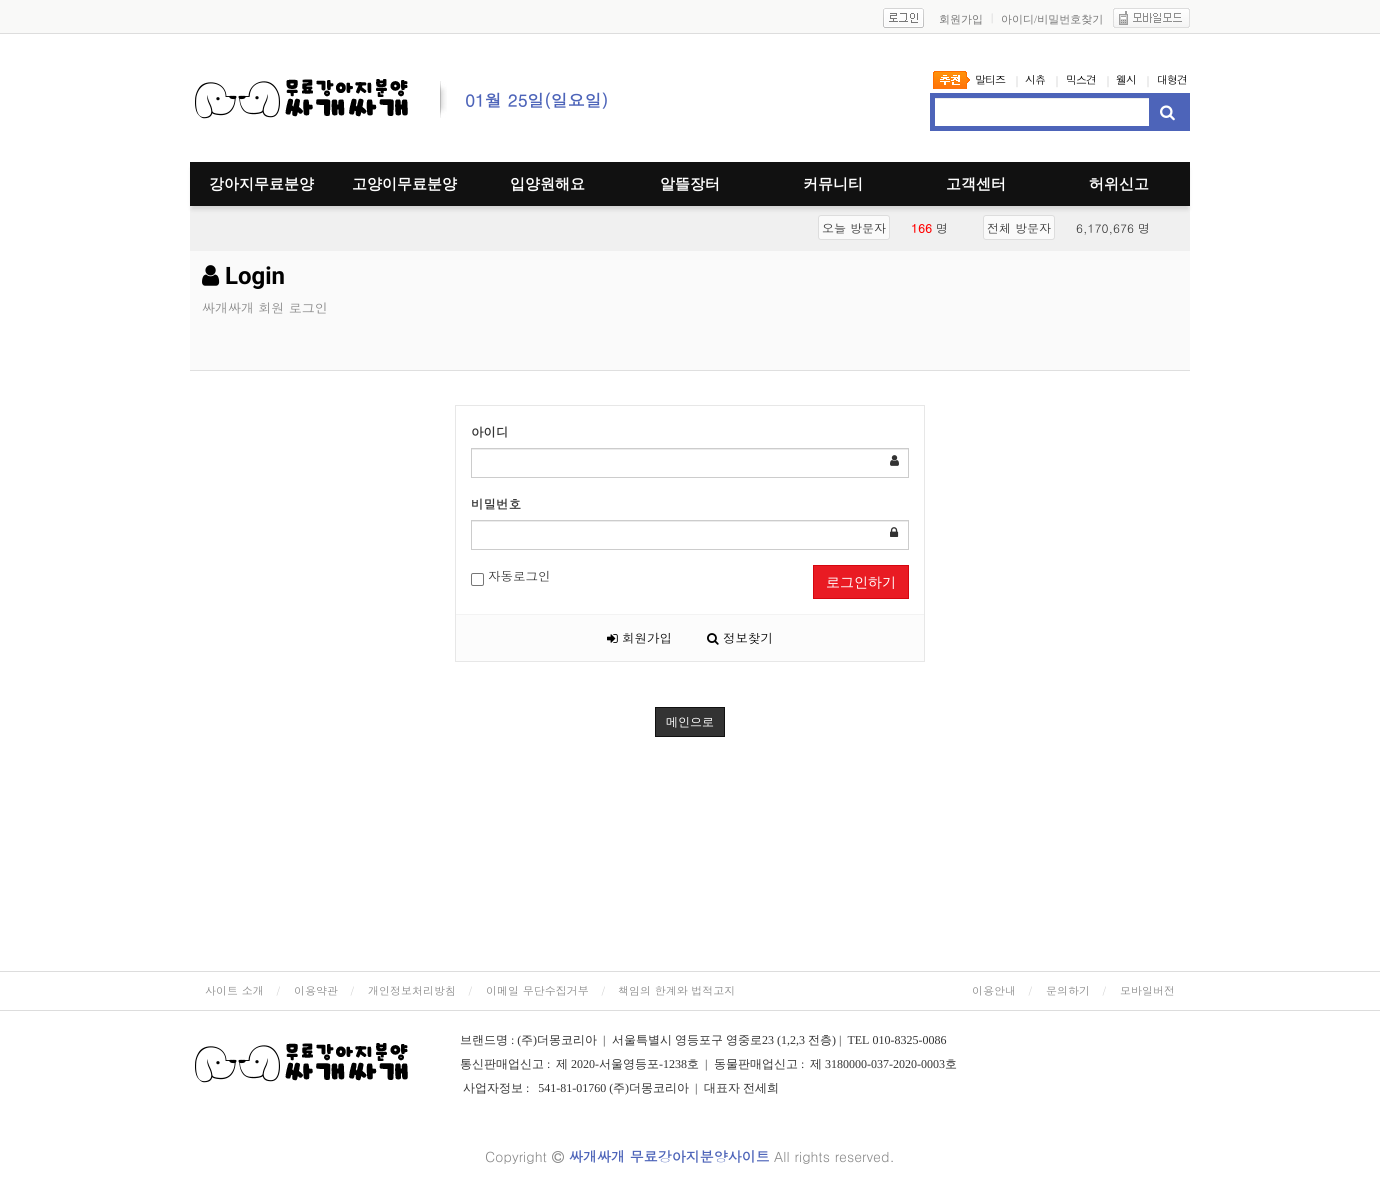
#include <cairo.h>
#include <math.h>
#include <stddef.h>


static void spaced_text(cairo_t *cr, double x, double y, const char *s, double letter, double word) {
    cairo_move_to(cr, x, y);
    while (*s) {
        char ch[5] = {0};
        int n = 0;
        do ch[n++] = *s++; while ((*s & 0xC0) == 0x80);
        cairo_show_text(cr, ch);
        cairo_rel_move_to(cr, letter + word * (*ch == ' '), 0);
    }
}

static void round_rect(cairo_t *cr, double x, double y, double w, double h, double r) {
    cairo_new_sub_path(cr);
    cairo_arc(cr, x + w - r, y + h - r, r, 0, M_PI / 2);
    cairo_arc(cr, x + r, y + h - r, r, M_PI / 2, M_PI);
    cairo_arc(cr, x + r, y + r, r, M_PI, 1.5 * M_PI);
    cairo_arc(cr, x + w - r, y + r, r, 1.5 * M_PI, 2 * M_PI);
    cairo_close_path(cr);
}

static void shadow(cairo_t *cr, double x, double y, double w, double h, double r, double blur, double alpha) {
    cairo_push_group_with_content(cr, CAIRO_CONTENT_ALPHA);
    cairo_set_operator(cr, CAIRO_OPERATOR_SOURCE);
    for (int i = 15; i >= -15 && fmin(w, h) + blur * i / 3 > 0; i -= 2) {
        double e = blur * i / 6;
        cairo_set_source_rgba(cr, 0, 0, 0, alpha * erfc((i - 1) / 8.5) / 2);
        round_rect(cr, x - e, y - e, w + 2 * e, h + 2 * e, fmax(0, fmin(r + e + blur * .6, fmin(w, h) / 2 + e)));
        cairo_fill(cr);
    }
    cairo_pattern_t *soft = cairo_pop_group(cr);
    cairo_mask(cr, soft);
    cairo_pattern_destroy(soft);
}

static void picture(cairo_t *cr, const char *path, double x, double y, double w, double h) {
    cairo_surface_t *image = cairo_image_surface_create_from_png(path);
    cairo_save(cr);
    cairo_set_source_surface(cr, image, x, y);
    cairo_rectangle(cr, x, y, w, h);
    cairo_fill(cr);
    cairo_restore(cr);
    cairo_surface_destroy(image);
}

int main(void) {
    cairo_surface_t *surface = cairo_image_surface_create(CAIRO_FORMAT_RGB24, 1380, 1177);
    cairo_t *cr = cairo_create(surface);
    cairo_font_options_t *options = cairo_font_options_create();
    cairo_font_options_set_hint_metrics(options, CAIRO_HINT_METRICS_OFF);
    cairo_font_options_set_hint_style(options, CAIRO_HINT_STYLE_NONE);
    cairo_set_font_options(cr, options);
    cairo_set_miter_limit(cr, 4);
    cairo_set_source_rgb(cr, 1, 1, 1);
    cairo_paint(cr);
    cairo_set_source_rgb(cr, 0.973, 0.973, 0.969);
    cairo_rectangle(cr, 0, 0, 1380, 33);
    cairo_fill(cr);
    cairo_set_source_rgb(cr, 0.867, 0.867, 0.867);
    cairo_rectangle(cr, 0, 33, 1380, 1);
    cairo_fill(cr);
    picture(cr, "img1.png", 883, 8, 41, 20);
    cairo_select_font_face(cr, "WenQuanYi Zen Hei Medium", CAIRO_FONT_SLANT_NORMAL, CAIRO_FONT_WEIGHT_NORMAL);
    cairo_set_font_size(cr, 11);
    cairo_set_source_rgb(cr, 0.467, 0.467, 0.467);
    cairo_move_to(cr, 939, 23);
    cairo_show_text(cr, "회원가입");
    cairo_select_font_face(cr, "Liberation Serif", CAIRO_FONT_SLANT_NORMAL, CAIRO_FONT_WEIGHT_NORMAL);
    cairo_set_source_rgb(cr, 0.8, 0.8, 0.8);
    cairo_move_to(cr, 991, 21);
    cairo_show_text(cr, "|");
    cairo_select_font_face(cr, "WenQuanYi Zen Hei Medium", CAIRO_FONT_SLANT_NORMAL, CAIRO_FONT_WEIGHT_NORMAL);
    cairo_set_source_rgb(cr, 0.467, 0.467, 0.467);
    cairo_move_to(cr, 1001, 23);
    cairo_show_text(cr, "아이디 비밀번호찾기");
    cairo_select_font_face(cr, "Liberation Serif", CAIRO_FONT_SLANT_NORMAL, CAIRO_FONT_WEIGHT_NORMAL);
    cairo_move_to(cr, 1034, 23);
    cairo_show_text(cr, "/");
    picture(cr, "img2.png", 1113, 8, 77, 20);
    picture(cr, "img3.png", 933, 71, 37, 18);
    cairo_select_font_face(cr, "Dotum", CAIRO_FONT_SLANT_NORMAL, CAIRO_FONT_WEIGHT_NORMAL);
    cairo_set_source_rgb(cr, 0, 0, 0);
    spaced_text(cr, 975, 84, "말티즈", -1, 0);
    cairo_set_font_size(cr, 12);
    cairo_set_source_rgb(cr, 0.8, 0.8, 0.8);
    spaced_text(cr, 1014, 86, "|", -1, 0);
    cairo_set_font_size(cr, 11);
    cairo_set_source_rgb(cr, 0, 0, 0);
    spaced_text(cr, 1025, 84, "시츄", -1, 0);
    cairo_set_font_size(cr, 12);
    cairo_set_source_rgb(cr, 0.8, 0.8, 0.8);
    spaced_text(cr, 1054, 86, "|", -1, 0);
    cairo_set_font_size(cr, 11);
    cairo_set_source_rgb(cr, 0, 0, 0);
    spaced_text(cr, 1066, 84, "믹스견", -1, 0);
    cairo_set_font_size(cr, 12);
    cairo_set_source_rgb(cr, 0.8, 0.8, 0.8);
    spaced_text(cr, 1105, 86, "|", -1, 0);
    cairo_set_font_size(cr, 11);
    cairo_set_source_rgb(cr, 0, 0, 0);
    spaced_text(cr, 1116, 84, "웰시", -1, 0);
    cairo_set_font_size(cr, 12);
    cairo_set_source_rgb(cr, 0.8, 0.8, 0.8);
    spaced_text(cr, 1145, 86, "|", -1, 0);
    cairo_set_font_size(cr, 11);
    cairo_set_source_rgb(cr, 0, 0, 0);
    spaced_text(cr, 1157, 84, "대형견", -1, 0);
    cairo_set_source_rgb(cr, 0.302, 0.392, 0.725);
    cairo_rectangle(cr, 930, 93, 260, 38);
    cairo_fill(cr);
    cairo_set_source_rgb(cr, 1, 1, 1);
    cairo_rectangle(cr, 935, 99, 214, 27);
    cairo_fill(cr);
    cairo_set_source_rgb(cr, 0.925, 0.925, 0.925);
    cairo_rectangle(cr, 935, 98, 214, 1);
    cairo_fill(cr);
    picture(cr, "img4.png", 1160, 105, 15, 16);
    picture(cr, "img5.png", 195, 79, 213, 40);
    picture(cr, "img6.png", 440, 81, 7, 37);
    cairo_select_font_face(cr, "Dotum", CAIRO_FONT_SLANT_NORMAL, CAIRO_FONT_WEIGHT_BOLD);
    cairo_set_font_size(cr, 17);
    cairo_set_source_rgb(cr, 0.302, 0.392, 0.725);
    cairo_move_to(cr, 465, 107);
    cairo_show_text(cr, "01월 25일(일요일)");
    cairo_set_source_rgb(cr, 0.941, 0.941, 0.941);
    cairo_rectangle(cr, 190, 206, 1000, 45);
    cairo_fill(cr);
    cairo_set_source_rgb(cr, 0.98, 0.98, 0.98);
    round_rect(cr, 818.5, 215.5, 71, 24, 2.5);
    cairo_fill_preserve(cr);
    cairo_set_source_rgb(cr, 0.867, 0.867, 0.867);
    cairo_set_line_width(cr, 1);
    cairo_stroke(cr);
    cairo_set_source_rgb(cr, 0.98, 0.98, 0.98);
    round_rect(cr, 983.5, 215.5, 71, 24, 2.5);
    cairo_fill_preserve(cr);
    cairo_set_source_rgb(cr, 0.867, 0.867, 0.867);
    cairo_stroke(cr);
    cairo_set_source_rgb(cr, 0.098, 0.098, 0.098);
    shadow(cr, 192, 169, 996, 40, 0, 2.5, 0.15);
    cairo_set_source_rgb(cr, 0.067, 0.067, 0.067);
    cairo_rectangle(cr, 190, 162, 1000, 44);
    cairo_fill(cr);
    cairo_select_font_face(cr, "WenQuanYi Zen Hei", CAIRO_FONT_SLANT_NORMAL, CAIRO_FONT_WEIGHT_BOLD);
    cairo_set_font_size(cr, 15);
    cairo_set_source_rgb(cr, 1, 1, 1);
    cairo_move_to(cr, 209, 189);
    cairo_show_text(cr, "강아지무료분양");
    cairo_move_to(cr, 352, 189);
    cairo_show_text(cr, "고양이무료분양");
    cairo_move_to(cr, 510, 189);
    cairo_show_text(cr, "입양원해요");
    cairo_move_to(cr, 660, 189);
    cairo_show_text(cr, "알뜰장터");
    cairo_move_to(cr, 803, 189);
    cairo_show_text(cr, "커뮤니티");
    cairo_move_to(cr, 946, 189);
    cairo_show_text(cr, "고객센터");
    cairo_move_to(cr, 1089, 189);
    cairo_show_text(cr, "허위신고");
    cairo_select_font_face(cr, "Dotum", CAIRO_FONT_SLANT_NORMAL, CAIRO_FONT_WEIGHT_NORMAL);
    cairo_set_font_size(cr, 12);
    cairo_set_source_rgb(cr, 0.2, 0.2, 0.2);
    cairo_move_to(cr, 822, 233);
    cairo_show_text(cr, "오늘 방문자");
    cairo_select_font_face(cr, "Dotum", CAIRO_FONT_SLANT_NORMAL, CAIRO_FONT_WEIGHT_BOLD);
    cairo_set_source_rgb(cr, 1, 0, 0);
    cairo_move_to(cr, 911, 233);
    cairo_show_text(cr, "166");
    cairo_select_font_face(cr, "Dotum", CAIRO_FONT_SLANT_NORMAL, CAIRO_FONT_WEIGHT_NORMAL);
    cairo_set_source_rgb(cr, 0.2, 0.2, 0.2);
    cairo_move_to(cr, 936, 233);
    cairo_show_text(cr, "명");
    cairo_move_to(cr, 987, 233);
    cairo_show_text(cr, "전체 방문자");
    cairo_move_to(cr, 1076, 233);
    cairo_show_text(cr, "6,170,676 명");
    cairo_set_source_rgb(cr, 0.98, 0.98, 0.98);
    cairo_rectangle(cr, 190, 251, 1000, 119);
    cairo_fill(cr);
    cairo_set_source_rgb(cr, 0.875, 0.875, 0.875);
    cairo_rectangle(cr, 190, 370, 1000, 1);
    cairo_fill(cr);
    picture(cr, "img7.png", 202, 265, 18, 21);
    cairo_select_font_face(cr, "Roboto", CAIRO_FONT_SLANT_NORMAL, CAIRO_FONT_WEIGHT_BOLD);
    cairo_set_font_size(cr, 24);
    cairo_set_source_rgb(cr, 0, 0, 0);
    cairo_move_to(cr, 225, 284);
    cairo_show_text(cr, "Login");
    cairo_select_font_face(cr, "Dotum", CAIRO_FONT_SLANT_NORMAL, CAIRO_FONT_WEIGHT_NORMAL);
    cairo_set_font_size(cr, 13);
    cairo_set_source_rgb(cr, 0.533, 0.533, 0.533);
    cairo_move_to(cr, 202, 313);
    cairo_show_text(cr, "싸개싸개 회원 로그인");
    cairo_set_source_rgb(cr, 0.988, 0.988, 0.988);
    cairo_rectangle(cr, 456, 615, 468, 46);
    cairo_fill(cr);
    cairo_rectangle(cr, 455.5, 405.5, 469, 256);
    cairo_set_source_rgb(cr, 0.906, 0.906, 0.906);
    cairo_stroke(cr);
    cairo_select_font_face(cr, "Dotum", CAIRO_FONT_SLANT_NORMAL, CAIRO_FONT_WEIGHT_BOLD);
    cairo_set_font_size(cr, 12.5);
    cairo_set_source_rgb(cr, 0.2, 0.2, 0.2);
    cairo_move_to(cr, 471, 437);
    cairo_show_text(cr, "아이디");
    cairo_set_source_rgb(cr, 0.925, 0.925, 0.925);
    cairo_rectangle(cr, 472, 449, 436, 1);
    cairo_fill(cr);
    cairo_rectangle(cr, 471.5, 448.5, 437, 29);
    cairo_set_source_rgb(cr, 0.8, 0.8, 0.8);
    cairo_stroke(cr);
    picture(cr, "img8.png", 890, 455, 9, 11);
    cairo_set_source_rgb(cr, 0.2, 0.2, 0.2);
    cairo_move_to(cr, 471, 509);
    cairo_show_text(cr, "비밀번호");
    cairo_set_source_rgb(cr, 0.925, 0.925, 0.925);
    cairo_rectangle(cr, 472, 521, 436, 1);
    cairo_fill(cr);
    cairo_rectangle(cr, 471.5, 520.5, 437, 29);
    cairo_set_source_rgb(cr, 0.8, 0.8, 0.8);
    cairo_stroke(cr);
    picture(cr, "img9.png", 890, 527, 9, 10);
    round_rect(cr, 471.5, 573.5, 12, 12, 1.5);
    cairo_set_source_rgb(cr, 0.463, 0.463, 0.463);
    cairo_stroke(cr);
    cairo_select_font_face(cr, "Dotum", CAIRO_FONT_SLANT_NORMAL, CAIRO_FONT_WEIGHT_NORMAL);
    cairo_set_source_rgb(cr, 0.2, 0.2, 0.2);
    cairo_move_to(cr, 488, 581);
    cairo_show_text(cr, "자동로그인");
    cairo_set_source_rgb(cr, 0.914, 0.106, 0.137);
    cairo_rectangle(cr, 813.5, 565.5, 95, 33);
    cairo_fill_preserve(cr);
    cairo_set_source_rgb(cr, 0.835, 0.027, 0.059);
    cairo_stroke(cr);
    cairo_select_font_face(cr, "WenQuanYi Zen Hei Medium", CAIRO_FONT_SLANT_NORMAL, CAIRO_FONT_WEIGHT_NORMAL);
    cairo_set_font_size(cr, 14);
    cairo_set_source_rgb(cr, 1, 1, 1);
    cairo_move_to(cr, 826, 587);
    cairo_show_text(cr, "로그인하기");
    cairo_set_source_rgb(cr, 0.953, 0.953, 0.953);
    cairo_rectangle(cr, 456, 614, 468, 1);
    cairo_fill(cr);
    picture(cr, "img10.png", 607, 634, 11, 9);
    cairo_select_font_face(cr, "Dotum", CAIRO_FONT_SLANT_NORMAL, CAIRO_FONT_WEIGHT_NORMAL);
    cairo_set_font_size(cr, 12.5);
    cairo_set_source_rgb(cr, 0, 0, 0);
    cairo_move_to(cr, 622, 643);
    cairo_show_text(cr, "회원가입");
    picture(cr, "img11.png", 707, 633, 12, 12);
    cairo_move_to(cr, 723, 643);
    cairo_show_text(cr, "정보찾기");
    cairo_set_source_rgb(cr, 0.2, 0.2, 0.2);
    cairo_rectangle(cr, 655.5, 707.5, 69, 29);
    cairo_fill_preserve(cr);
    cairo_set_source_rgb(cr, 0.067, 0.067, 0.067);
    cairo_stroke(cr);
    cairo_select_font_face(cr, "WenQuanYi Zen Hei Medium", CAIRO_FONT_SLANT_NORMAL, CAIRO_FONT_WEIGHT_NORMAL);
    cairo_set_font_size(cr, 12);
    cairo_set_source_rgb(cr, 1, 1, 1);
    cairo_move_to(cr, 666, 726);
    cairo_show_text(cr, "메인으로");
    cairo_set_source_rgb(cr, 0.867, 0.867, 0.867);
    cairo_rectangle(cr, 0, 971, 1380, 1);
    cairo_fill(cr);
    cairo_rectangle(cr, 0, 1010, 1380, 1);
    cairo_fill(cr);
    cairo_select_font_face(cr, "Dotum", CAIRO_FONT_SLANT_NORMAL, CAIRO_FONT_WEIGHT_NORMAL);
    cairo_set_font_size(cr, 11);
    cairo_set_source_rgb(cr, 0.533, 0.533, 0.533);
    cairo_move_to(cr, 205, 995);
    cairo_show_text(cr, "사이트 소개");
    cairo_set_source_rgb(cr, 0.8, 0.8, 0.8);
    cairo_move_to(cr, 276, 995);
    cairo_show_text(cr, "/");
    cairo_set_source_rgb(cr, 0.533, 0.533, 0.533);
    cairo_move_to(cr, 294, 995);
    cairo_show_text(cr, "이용약관");
    cairo_set_source_rgb(cr, 0.8, 0.8, 0.8);
    cairo_move_to(cr, 350, 995);
    cairo_show_text(cr, "/");
    cairo_set_source_rgb(cr, 0.533, 0.533, 0.533);
    cairo_move_to(cr, 368, 995);
    cairo_show_text(cr, "개인정보처리방침");
    cairo_set_source_rgb(cr, 0.8, 0.8, 0.8);
    cairo_move_to(cr, 468, 995);
    cairo_show_text(cr, "/");
    cairo_set_source_rgb(cr, 0.533, 0.533, 0.533);
    cairo_move_to(cr, 486, 995);
    cairo_show_text(cr, "이메일 무단수집거부");
    cairo_set_source_rgb(cr, 0.8, 0.8, 0.8);
    cairo_move_to(cr, 601, 995);
    cairo_show_text(cr, "/");
    cairo_set_source_rgb(cr, 0.533, 0.533, 0.533);
    cairo_move_to(cr, 618, 995);
    cairo_show_text(cr, "책임의 한계와 법적고지");
    cairo_move_to(cr, 972, 995);
    cairo_show_text(cr, "이용안내");
    cairo_set_source_rgb(cr, 0.8, 0.8, 0.8);
    cairo_move_to(cr, 1028, 995);
    cairo_show_text(cr, "/");
    cairo_set_source_rgb(cr, 0.533, 0.533, 0.533);
    cairo_move_to(cr, 1046, 995);
    cairo_show_text(cr, "문의하기");
    cairo_set_source_rgb(cr, 0.8, 0.8, 0.8);
    cairo_move_to(cr, 1102, 995);
    cairo_show_text(cr, "/");
    cairo_set_source_rgb(cr, 0.533, 0.533, 0.533);
    cairo_move_to(cr, 1120, 995);
    cairo_show_text(cr, "모바일버전");
    picture(cr, "img5.png", 195, 1043, 213, 40);
    cairo_select_font_face(cr, "WenQuanYi Zen Hei Medium", CAIRO_FONT_SLANT_NORMAL, CAIRO_FONT_WEIGHT_NORMAL);
    cairo_set_font_size(cr, 12);
    cairo_set_source_rgb(cr, 0.2, 0.2, 0.2);
    cairo_move_to(cr, 460, 1044);
    cairo_show_text(cr, "브랜드명");
    cairo_select_font_face(cr, "Liberation Serif", CAIRO_FONT_SLANT_NORMAL, CAIRO_FONT_WEIGHT_NORMAL);
    cairo_move_to(cr, 511, 1044);
    cairo_show_text(cr, ": (");
    cairo_select_font_face(cr, "WenQuanYi Zen Hei Medium", CAIRO_FONT_SLANT_NORMAL, CAIRO_FONT_WEIGHT_NORMAL);
    cairo_move_to(cr, 521, 1044);
    cairo_show_text(cr, "주");
    cairo_select_font_face(cr, "Liberation Serif", CAIRO_FONT_SLANT_NORMAL, CAIRO_FONT_WEIGHT_NORMAL);
    cairo_move_to(cr, 533, 1044);
    cairo_show_text(cr, ")");
    cairo_select_font_face(cr, "WenQuanYi Zen Hei Medium", CAIRO_FONT_SLANT_NORMAL, CAIRO_FONT_WEIGHT_NORMAL);
    cairo_move_to(cr, 537, 1044);
    cairo_show_text(cr, "더몽코리아");
    cairo_select_font_face(cr, "Liberation Serif", CAIRO_FONT_SLANT_NORMAL, CAIRO_FONT_WEIGHT_NORMAL);
    cairo_move_to(cr, 603, 1044);
    cairo_show_text(cr, "|");
    cairo_select_font_face(cr, "WenQuanYi Zen Hei Medium", CAIRO_FONT_SLANT_NORMAL, CAIRO_FONT_WEIGHT_NORMAL);
    cairo_move_to(cr, 612, 1044);
    cairo_show_text(cr, "서울특별시");
    cairo_move_to(cr, 675, 1044);
    cairo_show_text(cr, "영등포구");
    cairo_move_to(cr, 726, 1044);
    cairo_show_text(cr, "영중로");
    cairo_select_font_face(cr, "Liberation Serif", CAIRO_FONT_SLANT_NORMAL, CAIRO_FONT_WEIGHT_NORMAL);
    cairo_move_to(cr, 762, 1044);
    cairo_show_text(cr, "23 (1,2,3");
    cairo_select_font_face(cr, "WenQuanYi Zen Hei Medium", CAIRO_FONT_SLANT_NORMAL, CAIRO_FONT_WEIGHT_NORMAL);
    cairo_move_to(cr, 808, 1044);
    cairo_show_text(cr, "전층");
    cairo_select_font_face(cr, "Liberation Serif", CAIRO_FONT_SLANT_NORMAL, CAIRO_FONT_WEIGHT_NORMAL);
    cairo_move_to(cr, 832, 1044);
    cairo_show_text(cr, ") |  TEL 010-8325-0086");
    cairo_select_font_face(cr, "WenQuanYi Zen Hei Medium", CAIRO_FONT_SLANT_NORMAL, CAIRO_FONT_WEIGHT_NORMAL);
    cairo_move_to(cr, 460, 1068);
    cairo_show_text(cr, "통신판매업신고");
    cairo_select_font_face(cr, "Liberation Serif", CAIRO_FONT_SLANT_NORMAL, CAIRO_FONT_WEIGHT_NORMAL);
    cairo_move_to(cr, 547, 1068);
    cairo_show_text(cr, ":");
    cairo_select_font_face(cr, "WenQuanYi Zen Hei Medium", CAIRO_FONT_SLANT_NORMAL, CAIRO_FONT_WEIGHT_NORMAL);
    cairo_move_to(cr, 556, 1068);
    cairo_show_text(cr, "제");
    cairo_select_font_face(cr, "Liberation Serif", CAIRO_FONT_SLANT_NORMAL, CAIRO_FONT_WEIGHT_NORMAL);
    cairo_move_to(cr, 571, 1068);
    cairo_show_text(cr, "2020-");
    cairo_select_font_face(cr, "WenQuanYi Zen Hei Medium", CAIRO_FONT_SLANT_NORMAL, CAIRO_FONT_WEIGHT_NORMAL);
    cairo_move_to(cr, 599, 1068);
    cairo_show_text(cr, "서울영등포");
    cairo_select_font_face(cr, "Liberation Serif", CAIRO_FONT_SLANT_NORMAL, CAIRO_FONT_WEIGHT_NORMAL);
    cairo_move_to(cr, 659, 1068);
    cairo_show_text(cr, "-1238");
    cairo_select_font_face(cr, "WenQuanYi Zen Hei Medium", CAIRO_FONT_SLANT_NORMAL, CAIRO_FONT_WEIGHT_NORMAL);
    cairo_move_to(cr, 687, 1068);
    cairo_show_text(cr, "호");
    cairo_select_font_face(cr, "Liberation Serif", CAIRO_FONT_SLANT_NORMAL, CAIRO_FONT_WEIGHT_NORMAL);
    cairo_move_to(cr, 705, 1068);
    cairo_show_text(cr, "|");
    cairo_select_font_face(cr, "WenQuanYi Zen Hei Medium", CAIRO_FONT_SLANT_NORMAL, CAIRO_FONT_WEIGHT_NORMAL);
    cairo_move_to(cr, 714, 1068);
    cairo_show_text(cr, "동물판매업신고");
    cairo_select_font_face(cr, "Liberation Serif", CAIRO_FONT_SLANT_NORMAL, CAIRO_FONT_WEIGHT_NORMAL);
    cairo_move_to(cr, 801, 1068);
    cairo_show_text(cr, ":");
    cairo_select_font_face(cr, "WenQuanYi Zen Hei Medium", CAIRO_FONT_SLANT_NORMAL, CAIRO_FONT_WEIGHT_NORMAL);
    cairo_move_to(cr, 810, 1068);
    cairo_show_text(cr, "제");
    cairo_select_font_face(cr, "Liberation Serif", CAIRO_FONT_SLANT_NORMAL, CAIRO_FONT_WEIGHT_NORMAL);
    cairo_move_to(cr, 825, 1068);
    cairo_show_text(cr, "3180000-037-2020-0003");
    cairo_select_font_face(cr, "WenQuanYi Zen Hei Medium", CAIRO_FONT_SLANT_NORMAL, CAIRO_FONT_WEIGHT_NORMAL);
    cairo_move_to(cr, 945, 1068);
    cairo_show_text(cr, "호");
    cairo_move_to(cr, 463, 1092);
    cairo_show_text(cr, "사업자정보");
    cairo_select_font_face(cr, "Liberation Serif", CAIRO_FONT_SLANT_NORMAL, CAIRO_FONT_WEIGHT_NORMAL);
    cairo_move_to(cr, 526, 1092);
    cairo_show_text(cr, ":   541-81-01760 (");
    cairo_select_font_face(cr, "WenQuanYi Zen Hei Medium", CAIRO_FONT_SLANT_NORMAL, CAIRO_FONT_WEIGHT_NORMAL);
    cairo_move_to(cr, 613, 1092);
    cairo_show_text(cr, "주");
    cairo_select_font_face(cr, "Liberation Serif", CAIRO_FONT_SLANT_NORMAL, CAIRO_FONT_WEIGHT_NORMAL);
    cairo_move_to(cr, 625, 1092);
    cairo_show_text(cr, ")");
    cairo_select_font_face(cr, "WenQuanYi Zen Hei Medium", CAIRO_FONT_SLANT_NORMAL, CAIRO_FONT_WEIGHT_NORMAL);
    cairo_move_to(cr, 629, 1092);
    cairo_show_text(cr, "더몽코리아");
    cairo_select_font_face(cr, "Liberation Serif", CAIRO_FONT_SLANT_NORMAL, CAIRO_FONT_WEIGHT_NORMAL);
    cairo_move_to(cr, 695, 1092);
    cairo_show_text(cr, "|");
    cairo_select_font_face(cr, "WenQuanYi Zen Hei Medium", CAIRO_FONT_SLANT_NORMAL, CAIRO_FONT_WEIGHT_NORMAL);
    cairo_move_to(cr, 704, 1092);
    cairo_show_text(cr, "대표자");
    cairo_move_to(cr, 743, 1092);
    cairo_show_text(cr, "전세희");
    cairo_select_font_face(cr, "Dotum", CAIRO_FONT_SLANT_NORMAL, CAIRO_FONT_WEIGHT_NORMAL);
    cairo_set_font_size(cr, 14);
    cairo_set_source_rgb(cr, 0.533, 0.533, 0.533);
    cairo_move_to(cr, 485, 1162);
    cairo_show_text(cr, "Copyright");
    picture(cr, "img12.png", 552, 1151, 12, 12);
    cairo_select_font_face(cr, "Dotum", CAIRO_FONT_SLANT_NORMAL, CAIRO_FONT_WEIGHT_BOLD);
    cairo_set_source_rgb(cr, 0.302, 0.392, 0.725);
    cairo_move_to(cr, 569, 1162);
    cairo_show_text(cr, "싸개싸개 무료강아지분양사이트");
    cairo_select_font_face(cr, "Dotum", CAIRO_FONT_SLANT_NORMAL, CAIRO_FONT_WEIGHT_NORMAL);
    cairo_set_source_rgb(cr, 0.533, 0.533, 0.533);
    cairo_move_to(cr, 774, 1162);
    cairo_show_text(cr, "All rights reserved.");
    cairo_surface_write_to_png(surface, "page.png");
    cairo_font_options_destroy(options);
    cairo_destroy(cr);
    cairo_surface_destroy(surface);
    return 0;
}
